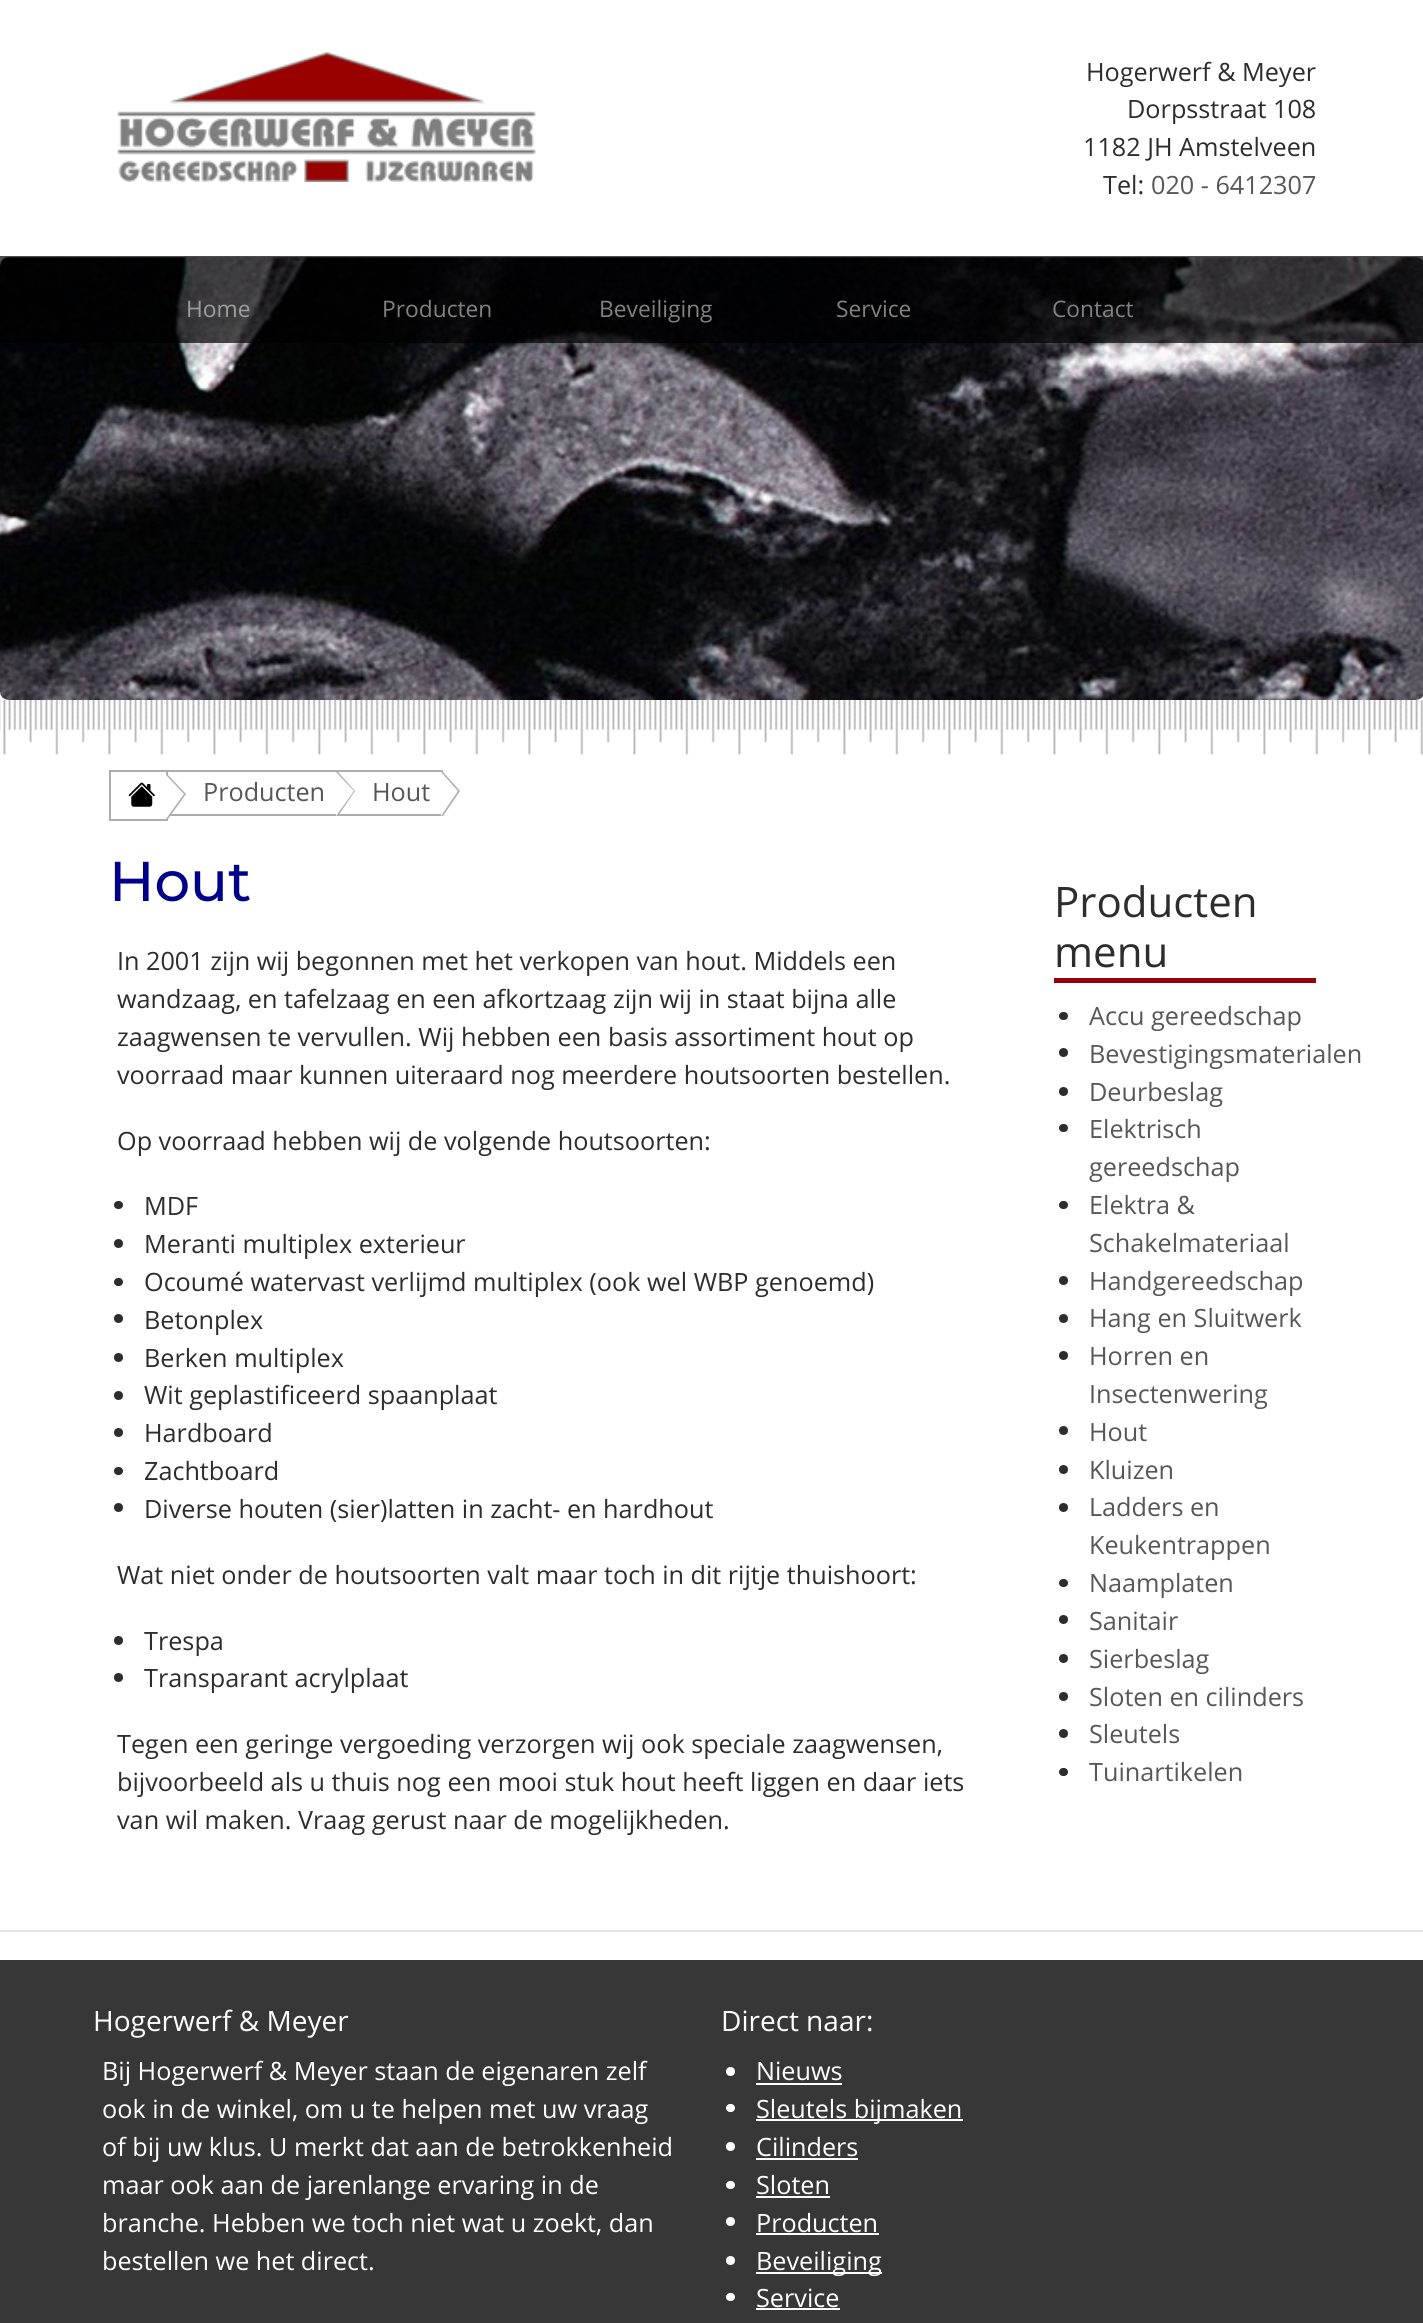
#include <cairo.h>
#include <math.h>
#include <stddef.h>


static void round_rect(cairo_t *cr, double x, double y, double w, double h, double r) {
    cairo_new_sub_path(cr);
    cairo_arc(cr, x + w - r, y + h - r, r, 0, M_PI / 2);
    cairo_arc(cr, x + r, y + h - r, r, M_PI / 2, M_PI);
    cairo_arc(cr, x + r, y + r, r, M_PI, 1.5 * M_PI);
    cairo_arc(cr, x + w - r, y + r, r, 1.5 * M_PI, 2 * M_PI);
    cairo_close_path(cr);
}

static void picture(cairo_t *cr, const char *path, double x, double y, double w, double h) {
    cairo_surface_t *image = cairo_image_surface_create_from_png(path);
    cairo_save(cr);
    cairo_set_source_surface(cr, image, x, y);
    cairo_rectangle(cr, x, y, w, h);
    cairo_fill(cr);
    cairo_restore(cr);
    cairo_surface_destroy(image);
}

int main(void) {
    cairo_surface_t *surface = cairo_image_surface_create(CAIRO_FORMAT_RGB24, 1423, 2323);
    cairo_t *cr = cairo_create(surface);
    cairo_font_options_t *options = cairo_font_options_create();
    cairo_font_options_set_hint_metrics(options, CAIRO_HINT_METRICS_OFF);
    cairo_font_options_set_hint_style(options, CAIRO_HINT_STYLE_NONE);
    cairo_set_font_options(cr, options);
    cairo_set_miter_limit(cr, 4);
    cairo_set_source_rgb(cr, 1, 1, 1);
    cairo_paint(cr);
    picture(cr, "img1.png", 117, 52, 419, 130);
    cairo_select_font_face(cr, "Open Sans", CAIRO_FONT_SLANT_NORMAL, CAIRO_FONT_WEIGHT_NORMAL);
    cairo_set_font_size(cr, 25.2);
    cairo_set_source_rgb(cr, 0.176, 0.176, 0.176);
    cairo_move_to(cr, 1086, 81);
    cairo_show_text(cr, "Hogerwerf & Meyer");
    cairo_move_to(cr, 1127, 118);
    cairo_show_text(cr, "Dorpsstraat 108");
    cairo_move_to(cr, 1083, 156);
    cairo_show_text(cr, "1182 JH Amstelveen");
    cairo_move_to(cr, 1103, 194);
    cairo_show_text(cr, "Tel:");
    cairo_set_source_rgb(cr, 0.341, 0.341, 0.341);
    cairo_move_to(cr, 1151, 194);
    cairo_show_text(cr, "020 - 6412307");
    picture(cr, "img2.png", 0, 257, 1423, 443);
    cairo_set_source_rgba(cr, 0, 0, 0, 0.7);
    cairo_rectangle(cr, 0, 256, 1423, 87);
    cairo_fill(cr);
    cairo_set_font_size(cr, 22.75);
    cairo_set_source_rgb(cr, 0.62, 0.62, 0.624);
    cairo_move_to(cr, 186, 317);
    cairo_show_text(cr, "Home");
    cairo_set_source_rgb(cr, 0.51, 0.51, 0.51);
    cairo_move_to(cr, 382, 317);
    cairo_show_text(cr, "Producten");
    cairo_move_to(cr, 599, 317);
    cairo_show_text(cr, "Beveiliging");
    cairo_move_to(cr, 836, 317);
    cairo_show_text(cr, "Service");
    cairo_move_to(cr, 1052, 317);
    cairo_show_text(cr, "Contact");
    picture(cr, "img3.png", 0, 700, 1423, 55);
    cairo_rectangle(cr, 110, 771, 57, 49);
    cairo_set_source_rgb(cr, 0.678, 0.678, 0.678);
    cairo_stroke(cr);
    cairo_rectangle(cr, 168, 770, 275, 2);
    cairo_fill(cr);
    cairo_rectangle(cr, 336, 770, 2, 46);
    cairo_fill(cr);
    cairo_rectangle(cr, 168, 814, 170, 2);
    cairo_fill(cr);
    cairo_new_path(cr);
    cairo_move_to(cr, 168, 819);
    cairo_line_to(cr, 168, 775);
    cairo_line_to(cr, 186, 794);
    cairo_close_path(cr);
    cairo_fill(cr);
    cairo_set_source_rgb(cr, 1, 1, 1);
    cairo_new_path(cr);
    cairo_move_to(cr, 166, 819);
    cairo_line_to(cr, 166, 775);
    cairo_line_to(cr, 184, 794);
    cairo_close_path(cr);
    cairo_fill(cr);
    picture(cr, "img4.png", 128, 782, 27, 25);
    cairo_set_source_rgb(cr, 0.678, 0.678, 0.678);
    cairo_rectangle(cr, 441, 770, 2, 46);
    cairo_fill(cr);
    cairo_rectangle(cr, 338, 814, 105, 2);
    cairo_fill(cr);
    cairo_new_path(cr);
    cairo_move_to(cr, 338, 816);
    cairo_line_to(cr, 338, 772);
    cairo_line_to(cr, 355, 791);
    cairo_close_path(cr);
    cairo_fill(cr);
    cairo_set_source_rgb(cr, 1, 1, 1);
    cairo_new_path(cr);
    cairo_move_to(cr, 336, 816);
    cairo_line_to(cr, 336, 772);
    cairo_line_to(cr, 354, 791);
    cairo_close_path(cr);
    cairo_fill(cr);
    cairo_set_font_size(cr, 25.2);
    cairo_set_source_rgb(cr, 0.341, 0.341, 0.341);
    cairo_move_to(cr, 203, 801);
    cairo_show_text(cr, "Producten");
    cairo_set_source_rgb(cr, 0.678, 0.678, 0.678);
    cairo_new_path(cr);
    cairo_move_to(cr, 443, 816);
    cairo_line_to(cr, 443, 772);
    cairo_line_to(cr, 460, 791);
    cairo_close_path(cr);
    cairo_fill(cr);
    cairo_set_source_rgb(cr, 1, 1, 1);
    cairo_new_path(cr);
    cairo_move_to(cr, 441, 816);
    cairo_line_to(cr, 441, 772);
    cairo_line_to(cr, 458, 791);
    cairo_close_path(cr);
    cairo_fill(cr);
    cairo_set_source_rgb(cr, 0.341, 0.341, 0.341);
    cairo_move_to(cr, 372, 801);
    cairo_show_text(cr, "Hout");
    cairo_select_font_face(cr, "Montserrat Thin", CAIRO_FONT_SLANT_NORMAL, CAIRO_FONT_WEIGHT_NORMAL);
    cairo_set_font_size(cr, 56);
    cairo_set_source_rgb(cr, 0, 0, 0.545);
    cairo_move_to(cr, 109, 901);
    cairo_show_text(cr, "Hout");
    cairo_select_font_face(cr, "Open Sans", CAIRO_FONT_SLANT_NORMAL, CAIRO_FONT_WEIGHT_NORMAL);
    cairo_set_font_size(cr, 25.2);
    cairo_set_source_rgb(cr, 0.176, 0.176, 0.176);
    cairo_move_to(cr, 117, 970);
    cairo_show_text(cr, "In 2001 zijn wij begonnen met het verkopen van hout. Middels een");
    cairo_move_to(cr, 117, 1008);
    cairo_show_text(cr, "wandzaag, en tafelzaag en een afkortzaag zijn wij in staat bijna alle");
    cairo_move_to(cr, 117, 1046);
    cairo_show_text(cr, "zaagwensen te vervullen. Wij hebben een basis assortiment hout op");
    cairo_move_to(cr, 117, 1084);
    cairo_show_text(cr, "voorraad maar kunnen uiteraard nog meerdere houtsoorten bestellen.");
    cairo_move_to(cr, 117, 1150);
    cairo_show_text(cr, "Op voorraad hebben wij de volgende houtsoorten:");
    round_rect(cr, 114, 1201, 9, 8, 4);
    cairo_fill(cr);
    cairo_move_to(cr, 144, 1215);
    cairo_show_text(cr, "MDF");
    cairo_new_path(cr);
    cairo_arc(cr, 118.5, 1243.5, 4.5, 0, 2 * M_PI);
    cairo_fill(cr);
    cairo_move_to(cr, 144, 1253);
    cairo_show_text(cr, "Meranti multiplex exterieur");
    round_rect(cr, 114, 1278, 9, 8, 4);
    cairo_fill(cr);
    cairo_move_to(cr, 144, 1291);
    cairo_show_text(cr, "Ocoumé watervast verlijmd multiplex (ook wel WBP genoemd)");
    cairo_new_path(cr);
    cairo_arc(cr, 118.5, 1318.5, 4.5, 0, 2 * M_PI);
    cairo_fill(cr);
    cairo_move_to(cr, 144, 1329);
    cairo_show_text(cr, "Betonplex");
    cairo_new_path(cr);
    cairo_arc(cr, 118.5, 1357.5, 4.5, 0, 2 * M_PI);
    cairo_fill(cr);
    cairo_move_to(cr, 144, 1367);
    cairo_show_text(cr, "Berken multiplex");
    cairo_new_path(cr);
    cairo_arc(cr, 118.5, 1395.5, 4.5, 0, 2 * M_PI);
    cairo_fill(cr);
    cairo_move_to(cr, 144, 1404);
    cairo_show_text(cr, "Wit geplastificeerd spaanplaat");
    cairo_new_path(cr);
    cairo_arc(cr, 118.5, 1432.5, 4.5, 0, 2 * M_PI);
    cairo_fill(cr);
    cairo_move_to(cr, 144, 1442);
    cairo_show_text(cr, "Hardboard");
    round_rect(cr, 114, 1467, 9, 8, 4);
    cairo_fill(cr);
    cairo_move_to(cr, 144, 1480);
    cairo_show_text(cr, "Zachtboard");
    cairo_new_path(cr);
    cairo_arc(cr, 118.5, 1507.5, 4.5, 0, 2 * M_PI);
    cairo_fill(cr);
    cairo_move_to(cr, 144, 1518);
    cairo_show_text(cr, "Diverse houten (sier)latten in zacht- en hardhout");
    cairo_move_to(cr, 117, 1584);
    cairo_show_text(cr, "Wat niet onder de houtsoorten valt maar toch in dit rijtje thuishoort:");
    cairo_new_path(cr);
    cairo_arc(cr, 118.5, 1640.5, 4.5, 0, 2 * M_PI);
    cairo_fill(cr);
    cairo_move_to(cr, 144, 1650);
    cairo_show_text(cr, "Trespa");
    cairo_new_path(cr);
    cairo_arc(cr, 118.5, 1677.5, 4.5, 0, 2 * M_PI);
    cairo_fill(cr);
    cairo_move_to(cr, 144, 1687);
    cairo_show_text(cr, "Transparant acrylplaat");
    cairo_move_to(cr, 117, 1753);
    cairo_show_text(cr, "Tegen een geringe vergoeding verzorgen wij ook speciale zaagwensen,");
    cairo_move_to(cr, 117, 1791);
    cairo_show_text(cr, "bijvoorbeeld als u thuis nog een mooi stuk hout heeft liggen en daar iets");
    cairo_move_to(cr, 117, 1829);
    cairo_show_text(cr, "van wil maken. Vraag gerust naar de mogelijkheden.");
    cairo_set_source_rgb(cr, 0.592, 0, 0.039);
    cairo_rectangle(cr, 1054, 978, 262, 5);
    cairo_fill(cr);
    cairo_set_font_size(cr, 42);
    cairo_set_source_rgb(cr, 0.176, 0.176, 0.176);
    cairo_move_to(cr, 1054, 917);
    cairo_show_text(cr, "Producten");
    cairo_move_to(cr, 1054, 967);
    cairo_show_text(cr, "menu");
    round_rect(cr, 1059, 1012, 9, 8, 4);
    cairo_fill(cr);
    cairo_set_font_size(cr, 25.2);
    cairo_set_source_rgb(cr, 0.341, 0.341, 0.341);
    cairo_move_to(cr, 1089, 1025);
    cairo_show_text(cr, "Accu gereedschap");
    cairo_set_source_rgb(cr, 0.176, 0.176, 0.176);
    cairo_new_path(cr);
    cairo_arc(cr, 1063.5, 1052.5, 4.5, 0, 2 * M_PI);
    cairo_fill(cr);
    cairo_set_source_rgb(cr, 0.341, 0.341, 0.341);
    cairo_move_to(cr, 1089, 1063);
    cairo_show_text(cr, "Bevestigingsmaterialen");
    cairo_set_source_rgb(cr, 0.176, 0.176, 0.176);
    cairo_new_path(cr);
    cairo_arc(cr, 1063.5, 1091.5, 4.5, 0, 2 * M_PI);
    cairo_fill(cr);
    cairo_set_source_rgb(cr, 0.341, 0.341, 0.341);
    cairo_move_to(cr, 1089, 1101);
    cairo_show_text(cr, "Deurbeslag");
    cairo_set_source_rgb(cr, 0.176, 0.176, 0.176);
    round_rect(cr, 1059, 1124, 9, 8, 4);
    cairo_fill(cr);
    cairo_set_source_rgb(cr, 0.341, 0.341, 0.341);
    cairo_move_to(cr, 1089, 1138);
    cairo_show_text(cr, "Elektrisch");
    cairo_move_to(cr, 1089, 1176);
    cairo_show_text(cr, "gereedschap");
    cairo_set_source_rgb(cr, 0.176, 0.176, 0.176);
    round_rect(cr, 1059, 1201, 9, 8, 4);
    cairo_fill(cr);
    cairo_set_source_rgb(cr, 0.341, 0.341, 0.341);
    cairo_move_to(cr, 1089, 1214);
    cairo_show_text(cr, "Elektra &");
    cairo_move_to(cr, 1089, 1252);
    cairo_show_text(cr, "Schakelmateriaal");
    cairo_set_source_rgb(cr, 0.176, 0.176, 0.176);
    cairo_new_path(cr);
    cairo_arc(cr, 1063.5, 1280.5, 4.5, 0, 2 * M_PI);
    cairo_fill(cr);
    cairo_set_source_rgb(cr, 0.341, 0.341, 0.341);
    cairo_move_to(cr, 1089, 1290);
    cairo_show_text(cr, "Handgereedschap");
    cairo_set_source_rgb(cr, 0.176, 0.176, 0.176);
    cairo_new_path(cr);
    cairo_arc(cr, 1063.5, 1318.5, 4.5, 0, 2 * M_PI);
    cairo_fill(cr);
    cairo_set_source_rgb(cr, 0.341, 0.341, 0.341);
    cairo_move_to(cr, 1089, 1327);
    cairo_show_text(cr, "Hang en Sluitwerk");
    cairo_set_source_rgb(cr, 0.176, 0.176, 0.176);
    cairo_new_path(cr);
    cairo_arc(cr, 1063.5, 1355.5, 4.5, 0, 2 * M_PI);
    cairo_fill(cr);
    cairo_set_source_rgb(cr, 0.341, 0.341, 0.341);
    cairo_move_to(cr, 1089, 1365);
    cairo_show_text(cr, "Horren en");
    cairo_move_to(cr, 1089, 1403);
    cairo_show_text(cr, "Insectenwering");
    cairo_set_source_rgb(cr, 0.176, 0.176, 0.176);
    cairo_new_path(cr);
    cairo_arc(cr, 1063.5, 1430.5, 4.5, 0, 2 * M_PI);
    cairo_fill(cr);
    cairo_set_source_rgb(cr, 0.341, 0.341, 0.341);
    cairo_move_to(cr, 1089, 1441);
    cairo_show_text(cr, "Hout");
    cairo_set_source_rgb(cr, 0.176, 0.176, 0.176);
    cairo_new_path(cr);
    cairo_arc(cr, 1063.5, 1469.5, 4.5, 0, 2 * M_PI);
    cairo_fill(cr);
    cairo_set_source_rgb(cr, 0.341, 0.341, 0.341);
    cairo_move_to(cr, 1089, 1479);
    cairo_show_text(cr, "Kluizen");
    cairo_set_source_rgb(cr, 0.176, 0.176, 0.176);
    cairo_new_path(cr);
    cairo_arc(cr, 1063.5, 1507.5, 4.5, 0, 2 * M_PI);
    cairo_fill(cr);
    cairo_set_source_rgb(cr, 0.341, 0.341, 0.341);
    cairo_move_to(cr, 1089, 1516);
    cairo_show_text(cr, "Ladders en");
    cairo_move_to(cr, 1089, 1554);
    cairo_show_text(cr, "Keukentrappen");
    cairo_set_source_rgb(cr, 0.176, 0.176, 0.176);
    round_rect(cr, 1059, 1579, 9, 8, 4);
    cairo_fill(cr);
    cairo_set_source_rgb(cr, 0.341, 0.341, 0.341);
    cairo_move_to(cr, 1089, 1592);
    cairo_show_text(cr, "Naamplaten");
    cairo_set_source_rgb(cr, 0.176, 0.176, 0.176);
    cairo_new_path(cr);
    cairo_arc(cr, 1063.5, 1619.5, 4.5, 0, 2 * M_PI);
    cairo_fill(cr);
    cairo_set_source_rgb(cr, 0.341, 0.341, 0.341);
    cairo_move_to(cr, 1089, 1630);
    cairo_show_text(cr, "Sanitair");
    cairo_set_source_rgb(cr, 0.176, 0.176, 0.176);
    cairo_new_path(cr);
    cairo_arc(cr, 1063.5, 1658.5, 4.5, 0, 2 * M_PI);
    cairo_fill(cr);
    cairo_set_source_rgb(cr, 0.341, 0.341, 0.341);
    cairo_move_to(cr, 1089, 1668);
    cairo_show_text(cr, "Sierbeslag");
    cairo_set_source_rgb(cr, 0.176, 0.176, 0.176);
    cairo_new_path(cr);
    cairo_arc(cr, 1063.5, 1696.5, 4.5, 0, 2 * M_PI);
    cairo_fill(cr);
    cairo_set_source_rgb(cr, 0.341, 0.341, 0.341);
    cairo_move_to(cr, 1089, 1706);
    cairo_show_text(cr, "Sloten en cilinders");
    cairo_set_source_rgb(cr, 0.176, 0.176, 0.176);
    cairo_new_path(cr);
    cairo_arc(cr, 1063.5, 1733.5, 4.5, 0, 2 * M_PI);
    cairo_fill(cr);
    cairo_set_source_rgb(cr, 0.341, 0.341, 0.341);
    cairo_move_to(cr, 1089, 1743);
    cairo_show_text(cr, "Sleutels");
    cairo_set_source_rgb(cr, 0.176, 0.176, 0.176);
    round_rect(cr, 1059, 1768, 9, 8, 4);
    cairo_fill(cr);
    cairo_set_source_rgb(cr, 0.341, 0.341, 0.341);
    cairo_move_to(cr, 1089, 1781);
    cairo_show_text(cr, "Tuinartikelen");
    cairo_set_source_rgb(cr, 0.902, 0.902, 0.902);
    cairo_rectangle(cr, 0, 1930, 1423, 2);
    cairo_fill(cr);
    cairo_set_source_rgb(cr, 0.216, 0.216, 0.216);
    cairo_rectangle(cr, 0, 1960, 1423, 363);
    cairo_fill(cr);
    cairo_set_font_size(cr, 28);
    cairo_set_source_rgb(cr, 1, 1, 1);
    cairo_move_to(cr, 93, 2031);
    cairo_show_text(cr, "Hogerwerf & Meyer");
    cairo_set_font_size(cr, 25.2);
    cairo_move_to(cr, 102, 2080);
    cairo_show_text(cr, "Bij Hogerwerf & Meyer staan de eigenaren zelf");
    cairo_move_to(cr, 102, 2118);
    cairo_show_text(cr, "ook in de winkel, om u te helpen met uw vraag");
    cairo_move_to(cr, 102, 2156);
    cairo_show_text(cr, "of bij uw klus. U merkt dat aan de betrokkenheid");
    cairo_move_to(cr, 102, 2194);
    cairo_show_text(cr, "maar ook aan de jarenlange ervaring in de");
    cairo_move_to(cr, 102, 2232);
    cairo_show_text(cr, "branche. Hebben we toch niet wat u zoekt, dan");
    cairo_move_to(cr, 102, 2270);
    cairo_show_text(cr, "bestellen we het direct.");
    cairo_set_font_size(cr, 28);
    cairo_move_to(cr, 721, 2031);
    cairo_show_text(cr, "Direct naar:");
    cairo_new_path(cr);
    cairo_arc(cr, 730.5, 2071.5, 4.5, 0, 2 * M_PI);
    cairo_fill(cr);
    cairo_set_font_size(cr, 25.2);
    cairo_move_to(cr, 756, 2080);
    cairo_show_text(cr, "Nieuws");
    cairo_rectangle(cr, 756, 2083, 86, 2);
    cairo_fill(cr);
    round_rect(cr, 726, 2104, 9, 8, 4);
    cairo_fill(cr);
    cairo_rectangle(cr, 756, 2119, 207, 2);
    cairo_fill(cr);
    cairo_move_to(cr, 756, 2118);
    cairo_show_text(cr, "Sleutels bijmaken");
    cairo_new_path(cr);
    cairo_arc(cr, 730.5, 2146.5, 4.5, 0, 2 * M_PI);
    cairo_fill(cr);
    cairo_move_to(cr, 756, 2156);
    cairo_show_text(cr, "Cilinders");
    cairo_rectangle(cr, 756, 2158, 102, 2);
    cairo_fill(cr);
    round_rect(cr, 726, 2181, 9, 8, 4);
    cairo_fill(cr);
    cairo_move_to(cr, 756, 2194);
    cairo_show_text(cr, "Sloten");
    cairo_rectangle(cr, 756, 2196, 74, 2);
    cairo_fill(cr);
    cairo_arc(cr, 730.5, 2221.5, 4.5, 0, 2 * M_PI);
    cairo_fill(cr);
    cairo_move_to(cr, 756, 2232);
    cairo_show_text(cr, "Producten");
    cairo_rectangle(cr, 756, 2233, 123, 2);
    cairo_fill(cr);
    cairo_arc(cr, 730.5, 2260.5, 4.5, 0, 2 * M_PI);
    cairo_fill(cr);
    cairo_rectangle(cr, 756, 2272, 126, 2);
    cairo_fill(cr);
    cairo_move_to(cr, 756, 2270);
    cairo_show_text(cr, "Beveiliging");
    round_rect(cr, 726, 2293, 9, 8, 4);
    cairo_fill(cr);
    cairo_move_to(cr, 756, 2307);
    cairo_show_text(cr, "Service");
    cairo_rectangle(cr, 756, 2308, 84, 2);
    cairo_fill(cr);
    cairo_surface_write_to_png(surface, "page.png");
    cairo_font_options_destroy(options);
    cairo_destroy(cr);
    cairo_surface_destroy(surface);
    return 0;
}
